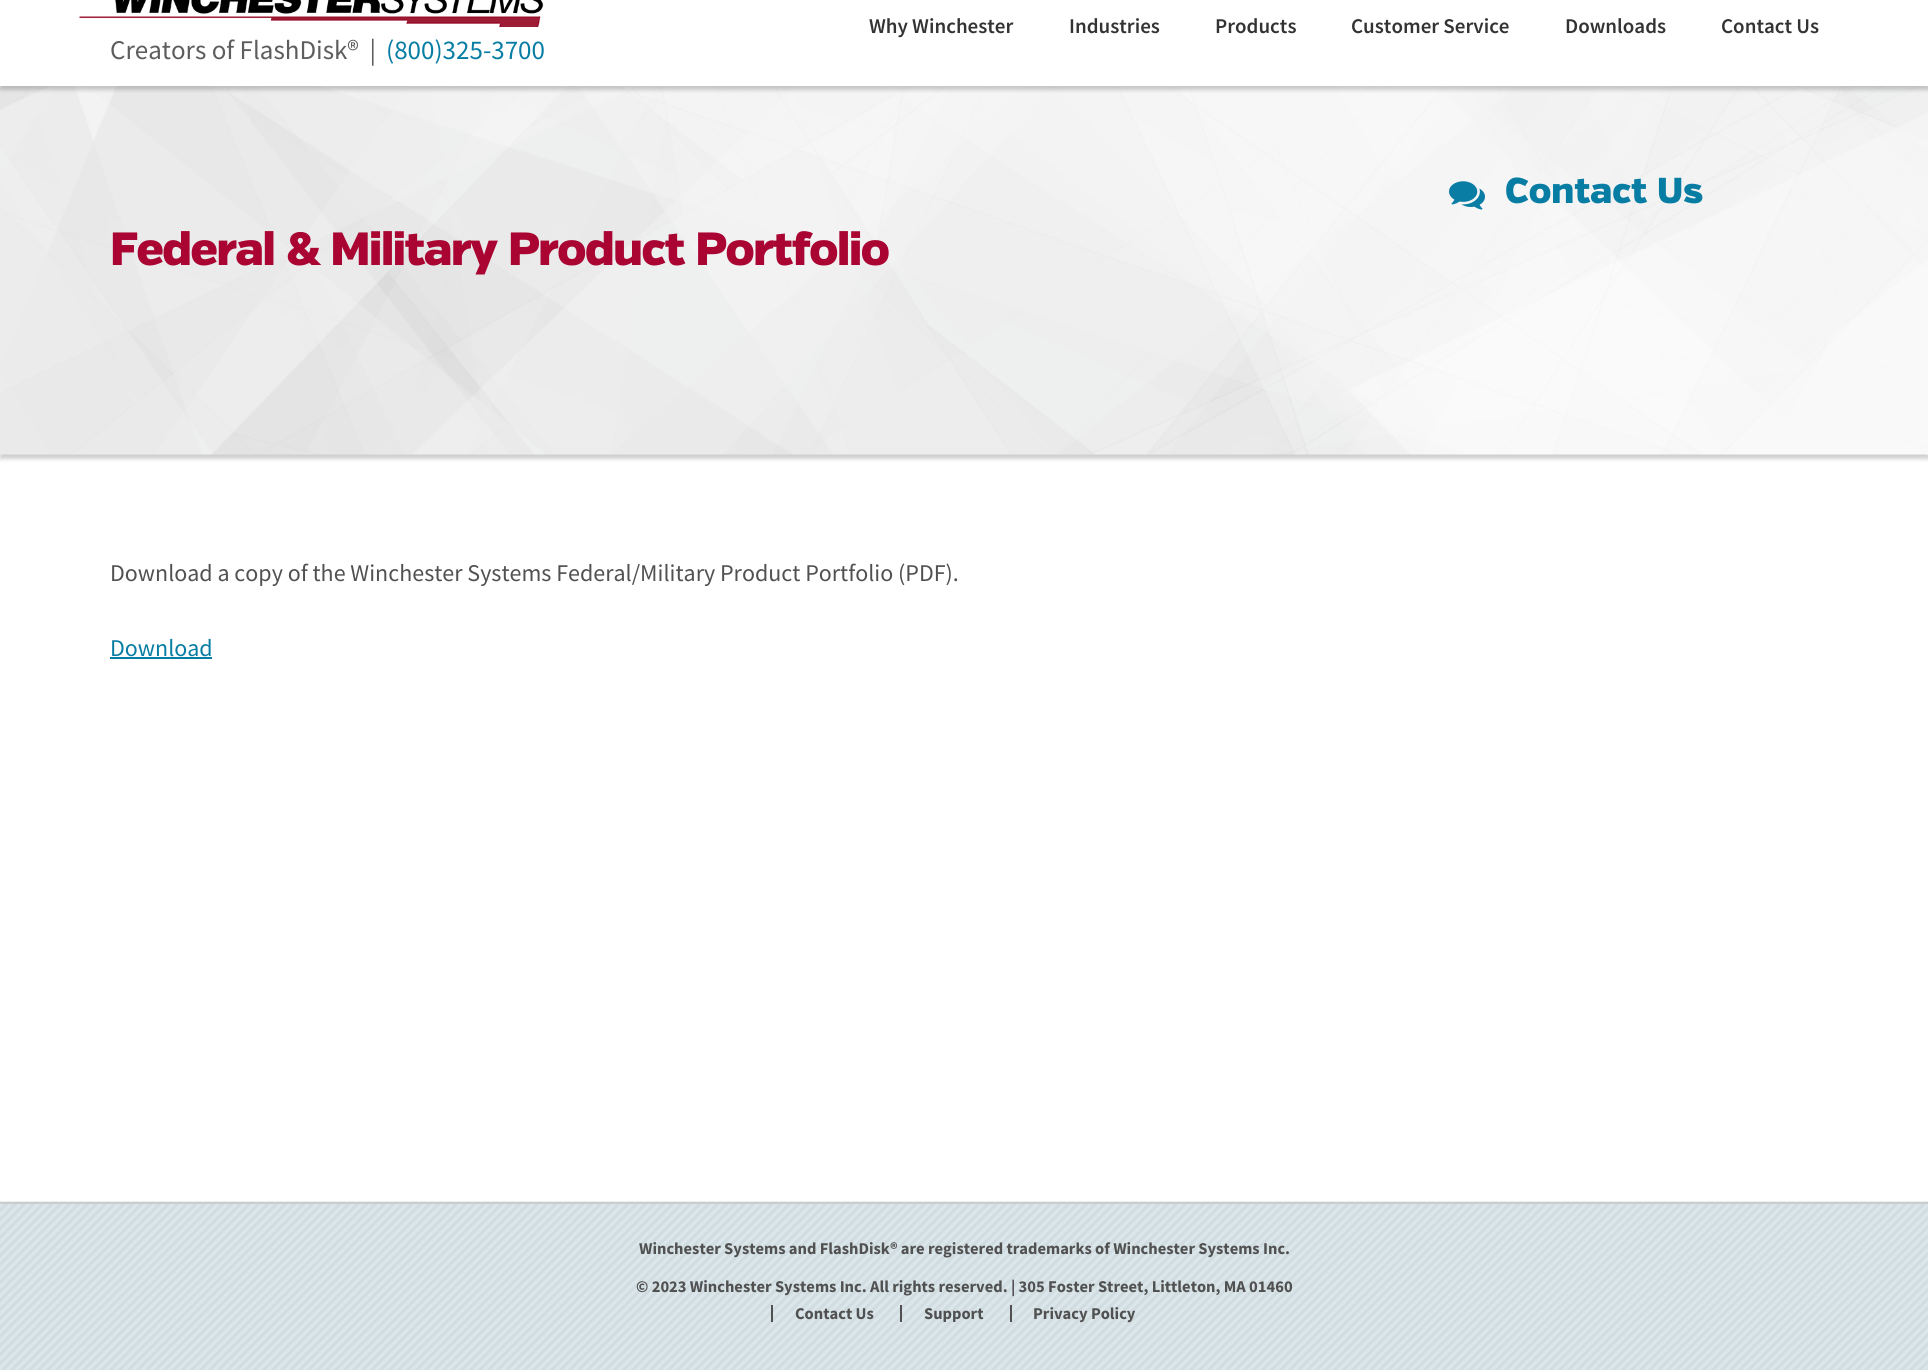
#include <cairo.h>
#include <math.h>
#include <stddef.h>


static void spaced_text(cairo_t *cr, double x, double y, const char *s, double letter, double word) {
    cairo_move_to(cr, x, y);
    while (*s) {
        char ch[5] = {0};
        int n = 0;
        do ch[n++] = *s++; while ((*s & 0xC0) == 0x80);
        cairo_show_text(cr, ch);
        cairo_rel_move_to(cr, letter + word * (*ch == ' '), 0);
    }
}

static void round_rect(cairo_t *cr, double x, double y, double w, double h, double r) {
    cairo_new_sub_path(cr);
    cairo_arc(cr, x + w - r, y + h - r, r, 0, M_PI / 2);
    cairo_arc(cr, x + r, y + h - r, r, M_PI / 2, M_PI);
    cairo_arc(cr, x + r, y + r, r, M_PI, 1.5 * M_PI);
    cairo_arc(cr, x + w - r, y + r, r, 1.5 * M_PI, 2 * M_PI);
    cairo_close_path(cr);
}

static void shadow(cairo_t *cr, double x, double y, double w, double h, double r, double blur, double alpha) {
    cairo_push_group_with_content(cr, CAIRO_CONTENT_ALPHA);
    cairo_set_operator(cr, CAIRO_OPERATOR_SOURCE);
    for (int i = 15; i >= -15 && fmin(w, h) + blur * i / 3 > 0; i -= 2) {
        double e = blur * i / 6;
        cairo_set_source_rgba(cr, 0, 0, 0, alpha * erfc((i - 1) / 8.5) / 2);
        round_rect(cr, x - e, y - e, w + 2 * e, h + 2 * e, fmax(0, fmin(r + e + blur * .6, fmin(w, h) / 2 + e)));
        cairo_fill(cr);
    }
    cairo_pattern_t *soft = cairo_pop_group(cr);
    cairo_mask(cr, soft);
    cairo_pattern_destroy(soft);
}

static void picture(cairo_t *cr, const char *path, double x, double y, double w, double h) {
    cairo_surface_t *image = cairo_image_surface_create_from_png(path);
    cairo_save(cr);
    cairo_set_source_surface(cr, image, x, y);
    cairo_rectangle(cr, x, y, w, h);
    cairo_fill(cr);
    cairo_restore(cr);
    cairo_surface_destroy(image);
}

int main(void) {
    cairo_surface_t *surface = cairo_image_surface_create(CAIRO_FORMAT_RGB24, 1928, 1370);
    cairo_t *cr = cairo_create(surface);
    cairo_font_options_t *options = cairo_font_options_create();
    cairo_font_options_set_hint_metrics(options, CAIRO_HINT_METRICS_OFF);
    cairo_font_options_set_hint_style(options, CAIRO_HINT_STYLE_NONE);
    cairo_set_font_options(cr, options);
    cairo_set_miter_limit(cr, 4);
    cairo_set_source_rgb(cr, 1, 1, 1);
    cairo_paint(cr);
    cairo_set_source_rgb(cr, 0, 0, 0);
    shadow(cr, 0, 90, 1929, 369, 0, 2, 0.19);
    picture(cr, "img2.png", 0, 86, 1928, 369);
    shadow(cr, 0, -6, 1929, 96, 0, 2, 0.19);
    cairo_set_source_rgb(cr, 1, 1, 1);
    cairo_rectangle(cr, 0, 0, 1928, 86);
    cairo_fill(cr);
    picture(cr, "img1.png", 79, 0, 465, 27);
    cairo_select_font_face(cr, "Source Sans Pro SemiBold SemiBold", CAIRO_FONT_SLANT_NORMAL, CAIRO_FONT_WEIGHT_NORMAL);
    cairo_set_font_size(cr, 21);
    cairo_set_source_rgb(cr, 0.2, 0.2, 0.2);
    cairo_move_to(cr, 869, 33);
    cairo_show_text(cr, "Why Winchester");
    cairo_move_to(cr, 1069, 33);
    cairo_show_text(cr, "Industries");
    cairo_move_to(cr, 1215, 33);
    cairo_show_text(cr, "Products");
    cairo_move_to(cr, 1351, 33);
    cairo_show_text(cr, "Customer Service");
    cairo_move_to(cr, 1565, 33);
    cairo_show_text(cr, "Downloads");
    cairo_move_to(cr, 1721, 33);
    cairo_show_text(cr, "Contact Us");
    cairo_select_font_face(cr, "Source Sans Pro", CAIRO_FONT_SLANT_NORMAL, CAIRO_FONT_WEIGHT_NORMAL);
    cairo_set_font_size(cr, 27);
    cairo_set_source_rgb(cr, 0.365, 0.365, 0.365);
    cairo_move_to(cr, 110, 59);
    cairo_show_text(cr, "Creators of FlashDisk®  |");
    cairo_set_source_rgb(cr, 0.035, 0.49, 0.643);
    cairo_move_to(cr, 386, 59);
    cairo_show_text(cr, "(800)325-3700");
    picture(cr, "img3.png", 1449, 181, 36, 29);
    cairo_select_font_face(cr, "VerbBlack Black", CAIRO_FONT_SLANT_NORMAL, CAIRO_FONT_WEIGHT_NORMAL);
    cairo_set_font_size(cr, 36);
    cairo_move_to(cr, 1505, 203);
    cairo_show_text(cr, "Contact Us");
    cairo_set_font_size(cr, 46.5);
    cairo_set_source_rgb(cr, 0.663, 0.016, 0.196);
    spaced_text(cr, 110, 265, "Federal & Military Product Portfolio", -1.4, 0);
    cairo_select_font_face(cr, "Source Sans Pro", CAIRO_FONT_SLANT_NORMAL, CAIRO_FONT_WEIGHT_NORMAL);
    cairo_set_font_size(cr, 24);
    cairo_set_source_rgb(cr, 0.318, 0.318, 0.318);
    cairo_move_to(cr, 110, 581);
    cairo_show_text(cr, "Download a copy of the Winchester Systems Federal/Military Product Portfolio (PDF).");
    cairo_set_source_rgb(cr, 0.035, 0.49, 0.643);
    cairo_move_to(cr, 110, 656);
    cairo_show_text(cr, "Download");
    cairo_rectangle(cr, 110, 657, 102, 2);
    cairo_fill(cr);
    picture(cr, "img4.png", 0, 1201, 1928, 169);
    cairo_set_source_rgb(cr, 0.8, 0.8, 0.8);
    cairo_rectangle(cr, 0, 1202, 1928, 2);
    cairo_fill(cr);
    cairo_select_font_face(cr, "Source Sans Pro", CAIRO_FONT_SLANT_NORMAL, CAIRO_FONT_WEIGHT_BOLD);
    cairo_set_font_size(cr, 16.5);
    cairo_set_source_rgb(cr, 0.318, 0.318, 0.318);
    cairo_move_to(cr, 639, 1254);
    cairo_show_text(cr, "Winchester Systems and FlashDisk® are registered trademarks of Winchester Systems Inc.");
    cairo_move_to(cr, 636, 1292);
    cairo_show_text(cr, "© 2023 Winchester Systems Inc. All rights reserved. | 305 Foster Street, Littleton, MA 01460");
    cairo_rectangle(cr, 771, 1305, 2, 17);
    cairo_fill(cr);
    cairo_move_to(cr, 795, 1319);
    cairo_show_text(cr, "Contact Us");
    cairo_rectangle(cr, 900, 1305, 2, 17);
    cairo_fill(cr);
    cairo_move_to(cr, 924, 1319);
    cairo_show_text(cr, "Support");
    cairo_rectangle(cr, 1010, 1305, 2, 17);
    cairo_fill(cr);
    cairo_move_to(cr, 1033, 1319);
    cairo_show_text(cr, "Privacy Policy");
    cairo_surface_write_to_png(surface, "page.png");
    cairo_font_options_destroy(options);
    cairo_destroy(cr);
    cairo_surface_destroy(surface);
    return 0;
}
